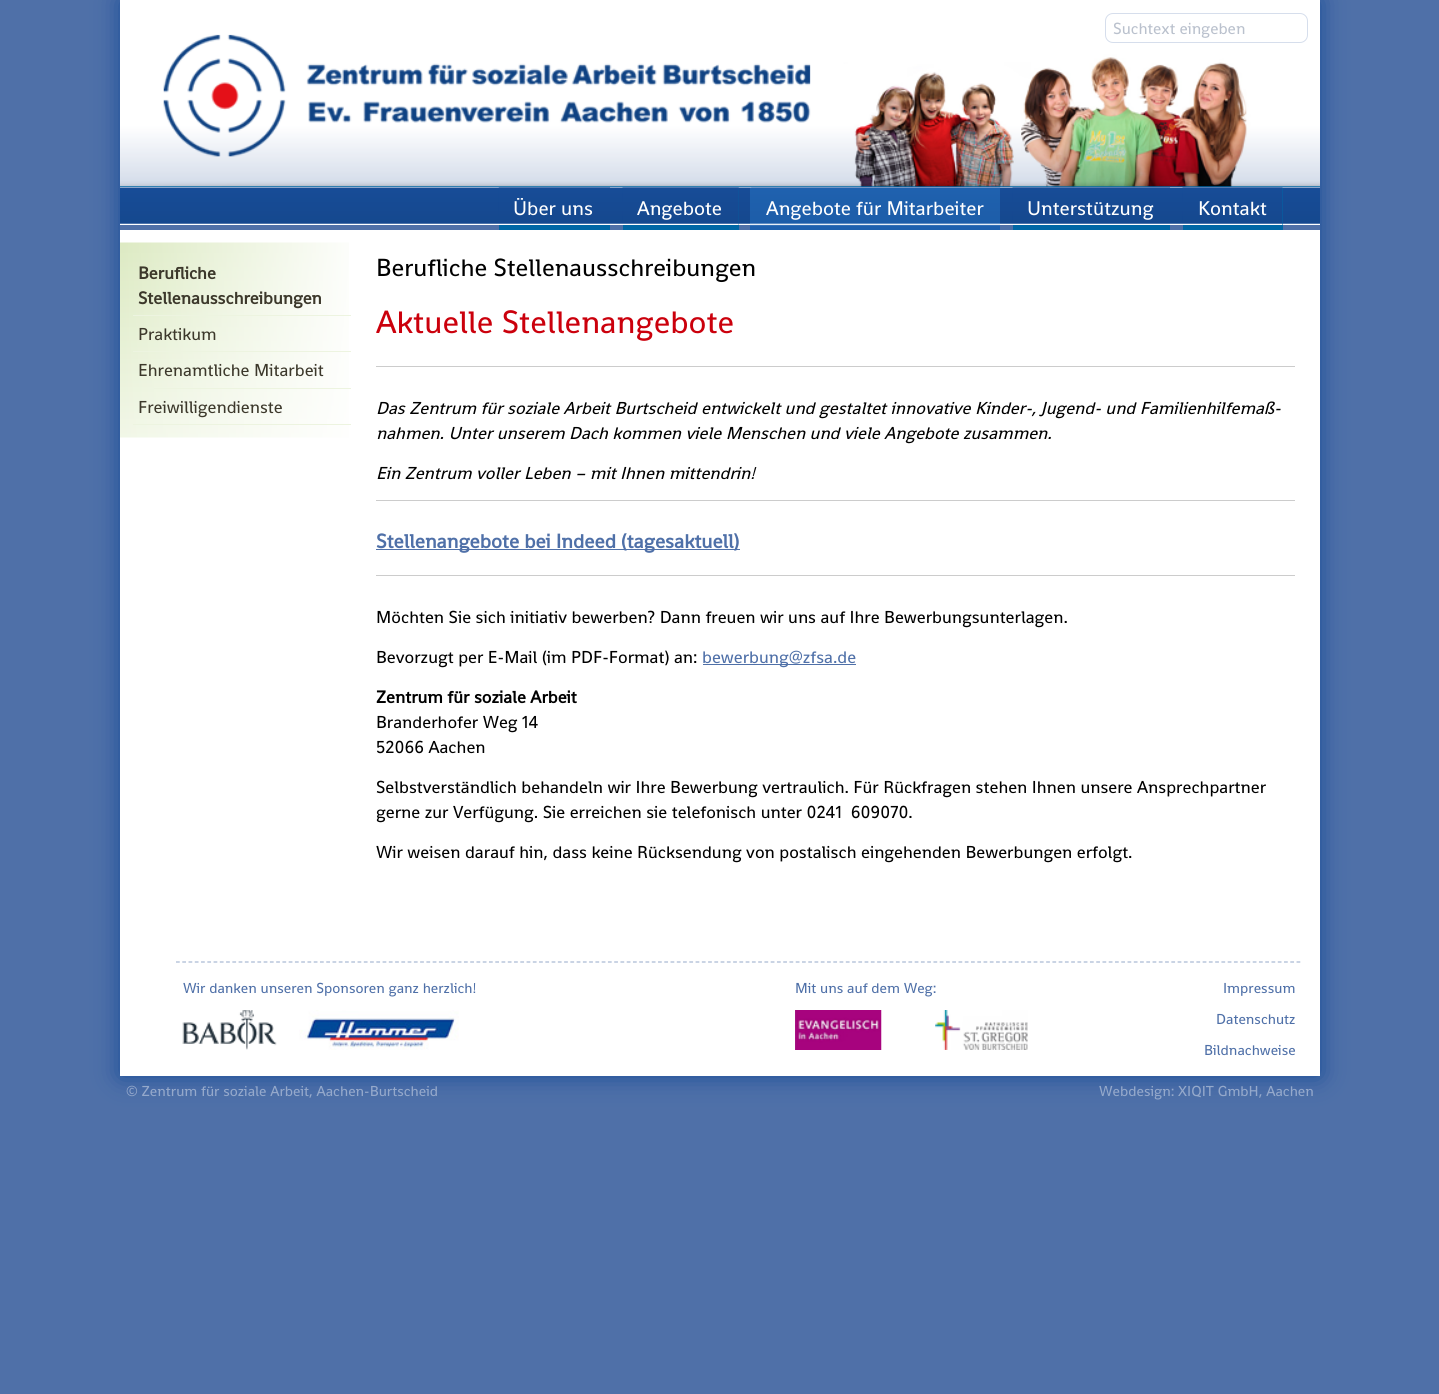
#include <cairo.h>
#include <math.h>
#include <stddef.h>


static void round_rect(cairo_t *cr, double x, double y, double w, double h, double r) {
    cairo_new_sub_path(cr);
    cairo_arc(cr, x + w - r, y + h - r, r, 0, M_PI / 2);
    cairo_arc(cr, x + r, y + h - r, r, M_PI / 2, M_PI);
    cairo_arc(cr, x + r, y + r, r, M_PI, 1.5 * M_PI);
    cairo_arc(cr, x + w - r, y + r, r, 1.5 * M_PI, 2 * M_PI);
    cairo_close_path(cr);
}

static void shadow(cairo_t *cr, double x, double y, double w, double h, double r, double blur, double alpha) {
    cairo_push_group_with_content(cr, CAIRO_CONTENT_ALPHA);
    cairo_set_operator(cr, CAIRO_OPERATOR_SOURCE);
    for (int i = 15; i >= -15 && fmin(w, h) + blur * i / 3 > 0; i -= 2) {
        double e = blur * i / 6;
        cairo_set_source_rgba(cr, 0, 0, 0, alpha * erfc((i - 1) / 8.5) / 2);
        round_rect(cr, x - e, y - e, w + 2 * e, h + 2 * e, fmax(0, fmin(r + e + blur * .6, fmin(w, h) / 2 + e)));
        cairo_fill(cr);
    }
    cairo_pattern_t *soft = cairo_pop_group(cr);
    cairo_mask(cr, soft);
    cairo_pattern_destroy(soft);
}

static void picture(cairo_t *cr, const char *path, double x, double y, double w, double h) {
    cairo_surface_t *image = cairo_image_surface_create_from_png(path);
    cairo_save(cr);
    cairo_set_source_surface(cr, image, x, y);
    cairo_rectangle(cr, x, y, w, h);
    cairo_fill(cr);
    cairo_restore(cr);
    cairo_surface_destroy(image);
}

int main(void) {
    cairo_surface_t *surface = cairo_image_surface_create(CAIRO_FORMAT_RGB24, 1439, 1394);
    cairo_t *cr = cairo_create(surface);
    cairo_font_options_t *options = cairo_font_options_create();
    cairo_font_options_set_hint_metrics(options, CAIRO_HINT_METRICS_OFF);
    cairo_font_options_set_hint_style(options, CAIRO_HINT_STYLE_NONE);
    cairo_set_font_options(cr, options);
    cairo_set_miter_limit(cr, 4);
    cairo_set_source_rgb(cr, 0.31, 0.439, 0.659);
    cairo_paint(cr);
    cairo_save(cr);
    cairo_set_fill_rule(cr, CAIRO_FILL_RULE_EVEN_ODD);
    cairo_new_path(cr);
    cairo_move_to(cr, 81, 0);
    cairo_line_to(cr, 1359, 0);
    cairo_line_to(cr, 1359, 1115);
    cairo_line_to(cr, 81, 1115);
    cairo_close_path(cr);
    cairo_move_to(cr, 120, 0);
    cairo_line_to(cr, 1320, 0);
    cairo_line_to(cr, 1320, 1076);
    cairo_line_to(cr, 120, 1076);
    cairo_close_path(cr);
    cairo_clip(cr);
    cairo_set_source_rgb(cr, 0.09, 0.298, 0.592);
    shadow(cr, 120, 0, 1200, 1076, 0, 12.5, 1);
    cairo_restore(cr);
    cairo_set_source_rgb(cr, 1, 1, 1);
    cairo_rectangle(cr, 120, 0, 1200, 188);
    cairo_fill(cr);
    cairo_set_source_rgb(cr, 0, 0.404, 0.651);
    cairo_rectangle(cr, 120, 186, 1200, 1);
    cairo_fill(cr);
    picture(cr, "img1.png", 120, 34, 1200, 153);
    round_rect(cr, 1105.5, 13.5, 202, 29, 7.5);
    cairo_set_source_rgb(cr, 0.839, 0.871, 0.922);
    cairo_set_line_width(cr, 1);
    cairo_stroke(cr);
    cairo_select_font_face(cr, "Shanti", CAIRO_FONT_SLANT_NORMAL, CAIRO_FONT_WEIGHT_NORMAL);
    cairo_set_font_size(cr, 16.25);
    cairo_set_source_rgb(cr, 0.729, 0.757, 0.804);
    cairo_move_to(cr, 1113, 34);
    cairo_show_text(cr, "Suchtext eingeben");
    picture(cr, "img2.png", 120, 187, 1200, 38);
    cairo_set_source_rgb(cr, 0, 0.404, 0.651);
    cairo_rectangle(cr, 499, 225, 111, 5);
    cairo_fill(cr);
    picture(cr, "img3.png", 498, 187, 112, 38);
    cairo_set_font_size(cr, 20);
    cairo_set_source_rgb(cr, 1, 1, 1);
    cairo_move_to(cr, 513, 215);
    cairo_show_text(cr, "Über uns");
    cairo_set_source_rgb(cr, 0, 0.404, 0.651);
    cairo_rectangle(cr, 623, 188, 116, 42);
    cairo_fill(cr);
    picture(cr, "img4.png", 622, 187, 117, 38);
    cairo_set_source_rgb(cr, 1, 1, 1);
    cairo_move_to(cr, 637, 215);
    cairo_show_text(cr, "Angebote");
    picture(cr, "img5.png", 751, 187, 249, 1);
    picture(cr, "img6.png", 750, 187, 250, 43);
    cairo_move_to(cr, 766, 215);
    cairo_show_text(cr, "Angebote für Mitarbeiter");
    cairo_set_source_rgb(cr, 0, 0.404, 0.651);
    cairo_rectangle(cr, 1013, 225, 157, 5);
    cairo_fill(cr);
    picture(cr, "img7.png", 1012, 187, 158, 38);
    cairo_set_source_rgb(cr, 1, 1, 1);
    cairo_move_to(cr, 1027, 215);
    cairo_show_text(cr, "Unterstützung");
    cairo_set_source_rgb(cr, 0, 0.404, 0.651);
    cairo_rectangle(cr, 1183, 188, 100, 42);
    cairo_fill(cr);
    picture(cr, "img8.png", 1182, 187, 101, 38);
    cairo_set_source_rgb(cr, 1, 1, 1);
    cairo_move_to(cr, 1198, 215);
    cairo_show_text(cr, "Kontakt");
    cairo_rectangle(cr, 120, 230, 1200, 846);
    cairo_fill(cr);
    picture(cr, "img9.png", 120, 242, 229, 196);
    cairo_set_source_rgb(cr, 0.929, 0.957, 0.878);
    cairo_rectangle(cr, 133, 315, 218, 1);
    cairo_fill(cr);
    cairo_select_font_face(cr, "Shanti", CAIRO_FONT_SLANT_NORMAL, CAIRO_FONT_WEIGHT_BOLD);
    cairo_set_font_size(cr, 17.5);
    cairo_set_source_rgb(cr, 0.235, 0.22, 0.169);
    cairo_move_to(cr, 138, 279);
    cairo_show_text(cr, "Berufliche");
    cairo_move_to(cr, 138, 304);
    cairo_show_text(cr, "Stellenausschreibungen");
    cairo_set_source_rgb(cr, 0.929, 0.957, 0.878);
    cairo_rectangle(cr, 133, 351, 218, 1);
    cairo_fill(cr);
    cairo_select_font_face(cr, "Shanti", CAIRO_FONT_SLANT_NORMAL, CAIRO_FONT_WEIGHT_NORMAL);
    cairo_set_source_rgb(cr, 0.235, 0.22, 0.169);
    cairo_move_to(cr, 138, 340);
    cairo_show_text(cr, "Praktikum");
    cairo_set_source_rgb(cr, 0.929, 0.957, 0.878);
    cairo_rectangle(cr, 154, 388, 197, 1);
    cairo_fill(cr);
    cairo_set_source_rgb(cr, 0.235, 0.22, 0.169);
    cairo_move_to(cr, 138, 376);
    cairo_show_text(cr, "Ehrenamtliche Mitarbeit");
    cairo_set_source_rgb(cr, 0.929, 0.957, 0.878);
    cairo_rectangle(cr, 133, 424, 218, 1);
    cairo_fill(cr);
    cairo_set_source_rgb(cr, 0.235, 0.22, 0.169);
    cairo_move_to(cr, 138, 413);
    cairo_show_text(cr, "Freiwilligendienste");
    cairo_set_font_size(cr, 25);
    cairo_set_source_rgb(cr, 0, 0, 0);
    cairo_move_to(cr, 376, 276);
    cairo_show_text(cr, "Berufliche Stellenausschreibungen");
    cairo_set_font_size(cr, 32.5);
    cairo_set_source_rgb(cr, 0.796, 0, 0.047);
    cairo_move_to(cr, 376, 333);
    cairo_show_text(cr, "Aktuelle Stellenangebote");
    cairo_set_source_rgb(cr, 0.8, 0.8, 0.8);
    cairo_rectangle(cr, 376, 366, 919, 1);
    cairo_fill(cr);
    cairo_select_font_face(cr, "Shanti", CAIRO_FONT_SLANT_ITALIC, CAIRO_FONT_WEIGHT_NORMAL);
    cairo_set_font_size(cr, 17.5);
    cairo_set_source_rgb(cr, 0, 0, 0);
    cairo_move_to(cr, 376, 414);
    cairo_show_text(cr, "Das Zentrum für soziale Arbeit Burtscheid entwickelt und gestaltet innovative Kinder-, Jugend- und Familienhilfemaß-");
    cairo_move_to(cr, 376, 439);
    cairo_show_text(cr, "nahmen. Unter unserem Dach kommen viele Menschen und viele Angebote zusammen.");
    cairo_move_to(cr, 376, 479);
    cairo_show_text(cr, "Ein Zentrum voller Leben – mit Ihnen mittendrin!");
    cairo_set_source_rgb(cr, 0.8, 0.8, 0.8);
    cairo_rectangle(cr, 376, 500, 919, 1);
    cairo_fill(cr);
    cairo_set_source_rgb(cr, 0.31, 0.439, 0.659);
    cairo_rectangle(cr, 376, 549, 364, 1);
    cairo_fill(cr);
    cairo_select_font_face(cr, "Shanti", CAIRO_FONT_SLANT_NORMAL, CAIRO_FONT_WEIGHT_BOLD);
    cairo_set_font_size(cr, 20);
    cairo_move_to(cr, 376, 548);
    cairo_show_text(cr, "Stellenangebote bei Indeed (tagesaktuell)");
    cairo_set_source_rgb(cr, 0.8, 0.8, 0.8);
    cairo_rectangle(cr, 376, 575, 919, 1);
    cairo_fill(cr);
    cairo_select_font_face(cr, "Shanti", CAIRO_FONT_SLANT_NORMAL, CAIRO_FONT_WEIGHT_NORMAL);
    cairo_set_font_size(cr, 17.5);
    cairo_set_source_rgb(cr, 0, 0, 0);
    cairo_move_to(cr, 376, 623);
    cairo_show_text(cr, "Möchten Sie sich initiativ bewerben? Dann freuen wir uns auf Ihre Bewerbungsunterlagen.");
    cairo_move_to(cr, 376, 663);
    cairo_show_text(cr, "Bevorzugt per E-Mail (im PDF-Format) an:");
    cairo_set_source_rgb(cr, 0.31, 0.439, 0.659);
    cairo_rectangle(cr, 703, 664, 153, 1);
    cairo_fill(cr);
    cairo_move_to(cr, 702, 663);
    cairo_show_text(cr, "bewerbung@zfsa.de");
    cairo_select_font_face(cr, "Shanti", CAIRO_FONT_SLANT_NORMAL, CAIRO_FONT_WEIGHT_BOLD);
    cairo_set_source_rgb(cr, 0, 0, 0);
    cairo_move_to(cr, 376, 703);
    cairo_show_text(cr, "Zentrum für soziale Arbeit");
    cairo_select_font_face(cr, "Shanti", CAIRO_FONT_SLANT_NORMAL, CAIRO_FONT_WEIGHT_NORMAL);
    cairo_move_to(cr, 376, 728);
    cairo_show_text(cr, "Branderhofer Weg 14");
    cairo_move_to(cr, 376, 753);
    cairo_show_text(cr, "52066 Aachen");
    cairo_move_to(cr, 376, 793);
    cairo_show_text(cr, "Selbstverständlich behandeln wir Ihre Bewerbung vertraulich. Für Rückfragen stehen Ihnen unsere Ansprechpartner");
    cairo_move_to(cr, 376, 818);
    cairo_show_text(cr, "gerne zur Verfügung. Sie erreichen sie telefonisch unter 0241  609070.");
    cairo_move_to(cr, 376, 858);
    cairo_show_text(cr, "Wir weisen darauf hin, dass keine Rücksendung von postalisch eingehenden Bewerbungen erfolgt.");
    cairo_new_path(cr);
    cairo_move_to(cr, 176, 962);
    cairo_line_to(cr, 1301, 962);
    cairo_set_source_rgb(cr, 0.655, 0.718, 0.827);
    cairo_set_line_width(cr, 1.2);
    cairo_set_dash(cr, (double[]){3.75, 2.51}, 2, 0);
    cairo_stroke(cr);
    cairo_set_font_size(cr, 14.6);
    cairo_set_source_rgb(cr, 0.31, 0.439, 0.659);
    cairo_move_to(cr, 183, 993);
    cairo_show_text(cr, "Wir danken unseren Sponsoren ganz herzlich!");
    cairo_move_to(cr, 795, 993);
    cairo_show_text(cr, "Mit uns auf dem Weg:");
    picture(cr, "img10.png", 795, 1010, 87, 40);
    picture(cr, "img11.png", 935, 1010, 93, 40);
    cairo_move_to(cr, 1223, 993);
    cairo_show_text(cr, "Impressum");
    cairo_move_to(cr, 1216, 1024);
    cairo_show_text(cr, "Datenschutz");
    cairo_move_to(cr, 1204, 1055);
    cairo_show_text(cr, "Bildnachweise");
    picture(cr, "img12.png", 182, 1010, 95, 40);
    picture(cr, "img13.png", 299, 1010, 160, 40);
    cairo_set_source_rgb(cr, 0.584, 0.663, 0.796);
    cairo_move_to(cr, 126, 1096);
    cairo_show_text(cr, "© Zentrum für soziale Arbeit, Aachen-Burtscheid");
    cairo_move_to(cr, 1099, 1096);
    cairo_show_text(cr, "Webdesign: XIQIT GmbH, Aachen");
    cairo_surface_write_to_png(surface, "page.png");
    cairo_font_options_destroy(options);
    cairo_destroy(cr);
    cairo_surface_destroy(surface);
    return 0;
}
